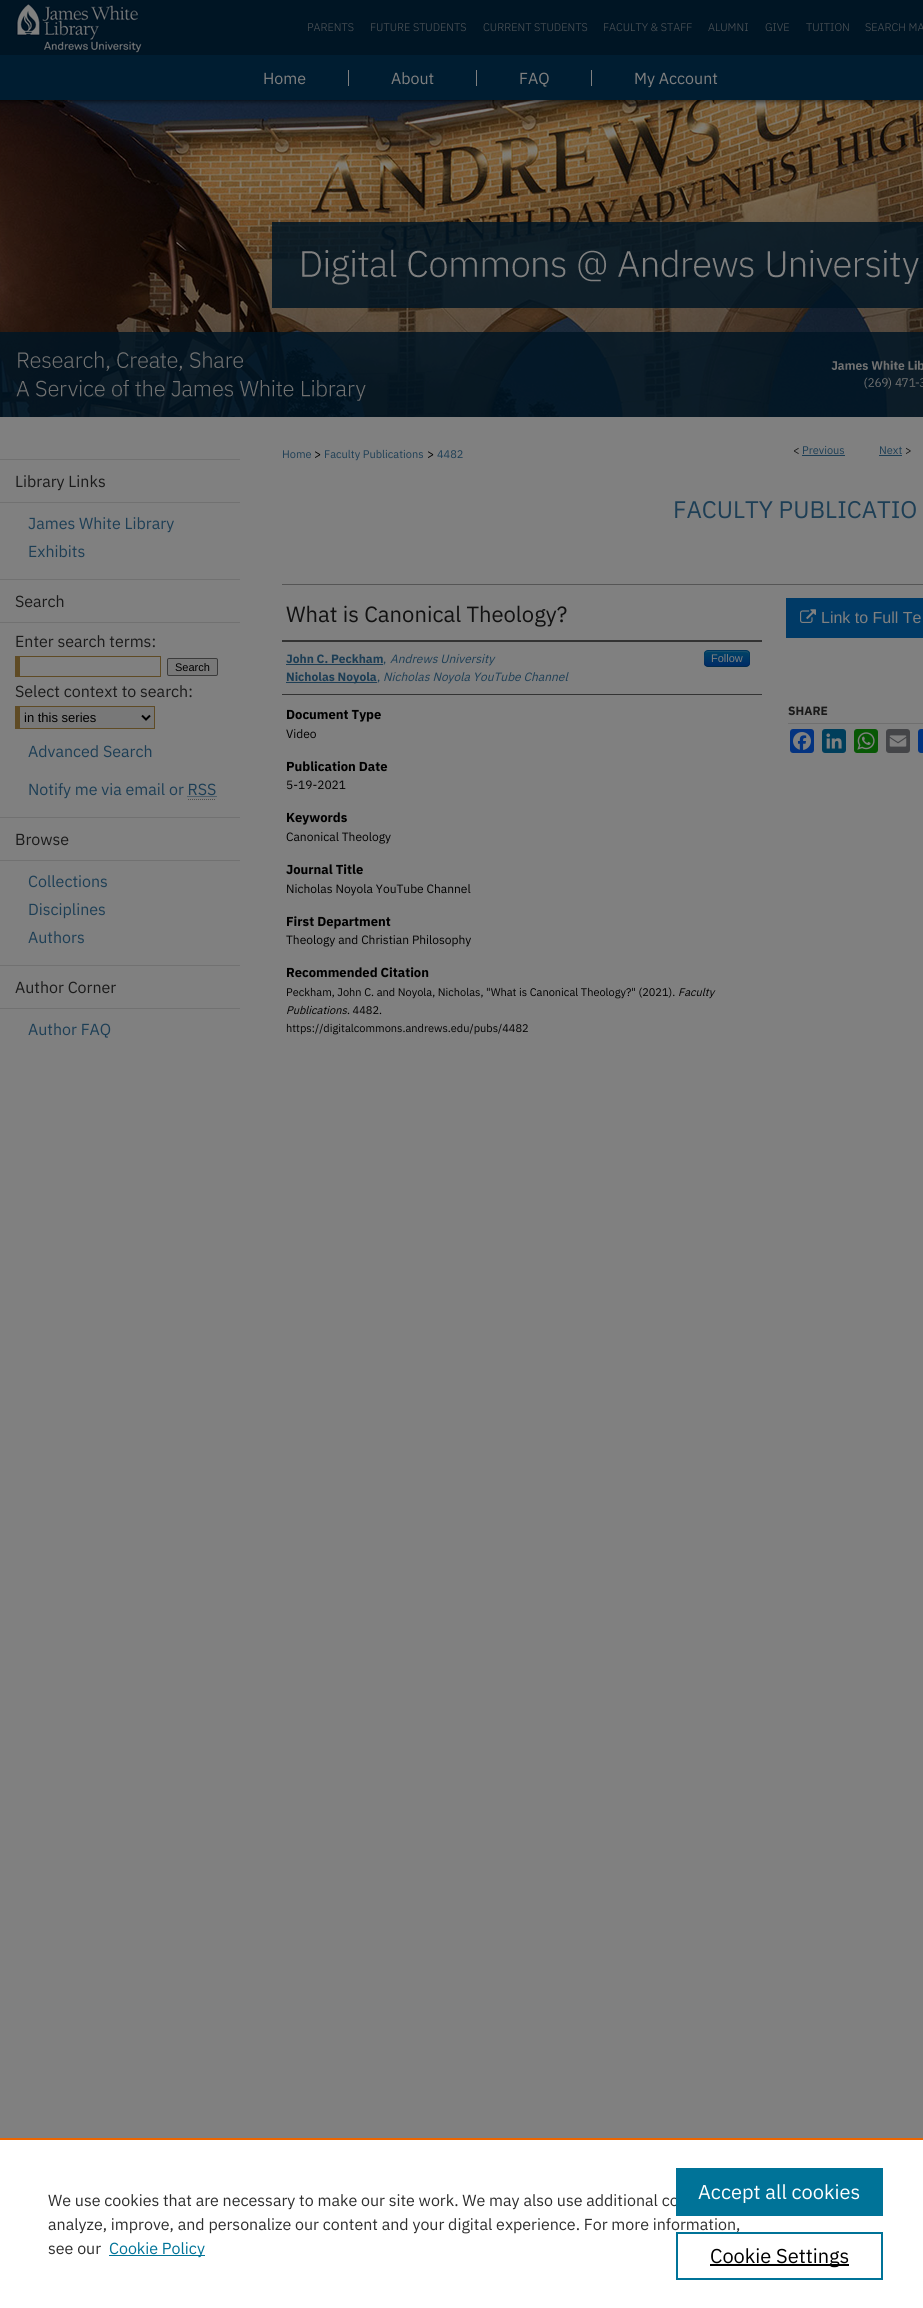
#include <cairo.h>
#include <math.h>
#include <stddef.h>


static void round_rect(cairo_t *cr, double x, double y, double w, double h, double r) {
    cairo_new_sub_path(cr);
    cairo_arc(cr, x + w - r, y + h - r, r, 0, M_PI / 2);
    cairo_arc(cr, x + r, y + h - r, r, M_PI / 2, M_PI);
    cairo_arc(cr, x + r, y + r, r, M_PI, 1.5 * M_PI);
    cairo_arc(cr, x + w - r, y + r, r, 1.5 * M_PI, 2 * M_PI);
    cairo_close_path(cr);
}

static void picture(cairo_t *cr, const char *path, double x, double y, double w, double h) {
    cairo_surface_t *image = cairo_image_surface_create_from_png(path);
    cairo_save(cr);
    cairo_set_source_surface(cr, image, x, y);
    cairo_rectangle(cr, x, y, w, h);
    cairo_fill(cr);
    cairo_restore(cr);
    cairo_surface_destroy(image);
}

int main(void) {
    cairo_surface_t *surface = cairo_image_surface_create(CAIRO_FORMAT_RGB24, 923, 2308);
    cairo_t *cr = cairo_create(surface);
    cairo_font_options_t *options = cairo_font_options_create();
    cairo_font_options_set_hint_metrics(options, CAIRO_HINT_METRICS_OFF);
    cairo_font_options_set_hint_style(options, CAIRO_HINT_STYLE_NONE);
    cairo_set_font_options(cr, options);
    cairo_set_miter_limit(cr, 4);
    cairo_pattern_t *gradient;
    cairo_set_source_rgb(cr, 0.502, 0.502, 0.502);
    cairo_paint(cr);
    picture(cr, "img1.png", 0, 0, 923, 100);
    picture(cr, "img2.png", 16, 3, 127, 50);
    cairo_select_font_face(cr, "IBM Plex Sans Light", CAIRO_FONT_SLANT_NORMAL, CAIRO_FONT_WEIGHT_NORMAL);
    cairo_set_font_size(cr, 11);
    cairo_set_source_rgb(cr, 0.322, 0.337, 0.353);
    cairo_move_to(cr, 307, 31);
    cairo_show_text(cr, "PARENTS");
    cairo_move_to(cr, 370, 31);
    cairo_show_text(cr, "FUTURE STUDENTS");
    cairo_move_to(cr, 483, 31);
    cairo_show_text(cr, "CURRENT STUDENTS");
    cairo_move_to(cr, 603, 31);
    cairo_show_text(cr, "FACULTY & STAFF");
    cairo_move_to(cr, 708, 31);
    cairo_show_text(cr, "ALUMNI");
    cairo_move_to(cr, 765, 31);
    cairo_show_text(cr, "GIVE");
    cairo_move_to(cr, 806, 31);
    cairo_show_text(cr, "TUITION");
    cairo_move_to(cr, 865, 31);
    cairo_show_text(cr, "SEARCH MA");
    cairo_set_source_rgb(cr, 0.502, 0.502, 0.502);
    cairo_rectangle(cr, 348, 70, 1, 16);
    cairo_fill(cr);
    cairo_select_font_face(cr, "IBM Plex Sans", CAIRO_FONT_SLANT_NORMAL, CAIRO_FONT_WEIGHT_NORMAL);
    cairo_set_font_size(cr, 16);
    cairo_move_to(cr, 263, 84);
    cairo_show_text(cr, "Home");
    cairo_rectangle(cr, 476, 70, 1, 16);
    cairo_fill(cr);
    cairo_move_to(cr, 391, 84);
    cairo_show_text(cr, "About");
    cairo_rectangle(cr, 591, 70, 1, 16);
    cairo_fill(cr);
    cairo_move_to(cr, 519, 84);
    cairo_show_text(cr, "FAQ");
    cairo_move_to(cr, 634, 84);
    cairo_show_text(cr, "My Account");
    picture(cr, "img3.png", 0, 100, 923, 317);
    cairo_set_source_rgb(cr, 0.443, 0.443, 0.443);
    cairo_rectangle(cr, 0, 459, 240, 1);
    cairo_fill(cr);
    cairo_rectangle(cr, 0, 502, 240, 1);
    cairo_fill(cr);
    cairo_set_source_rgb(cr, 0.102, 0.102, 0.102);
    cairo_move_to(cr, 15, 487);
    cairo_show_text(cr, "Library Links");
    cairo_set_source_rgb(cr, 0.114, 0.243, 0.333);
    cairo_move_to(cr, 28, 529);
    cairo_show_text(cr, "James White Library");
    cairo_move_to(cr, 28, 557);
    cairo_show_text(cr, "Exhibits");
    cairo_set_source_rgb(cr, 0.443, 0.443, 0.443);
    cairo_rectangle(cr, 0, 579, 240, 1);
    cairo_fill(cr);
    cairo_rectangle(cr, 0, 622, 240, 1);
    cairo_fill(cr);
    cairo_set_source_rgb(cr, 0.102, 0.102, 0.102);
    cairo_move_to(cr, 15, 607);
    cairo_show_text(cr, "Search");
    cairo_move_to(cr, 15, 647);
    cairo_show_text(cr, "Enter search terms:");
    cairo_set_source_rgb(cr, 0.373, 0.294, 0.145);
    cairo_rectangle(cr, 15, 656, 146, 1);
    cairo_fill(cr);
    cairo_rectangle(cr, 160, 656, 1, 21);
    cairo_fill(cr);
    cairo_rectangle(cr, 15, 676, 146, 1);
    cairo_fill(cr);
    cairo_rectangle(cr, 15, 656, 5, 21);
    cairo_fill(cr);
    cairo_set_source_rgb(cr, 0.471, 0.471, 0.471);
    round_rect(cr, 167.5, 658.5, 50, 17, 1.5);
    cairo_fill_preserve(cr);
    cairo_set_source_rgb(cr, 0.231, 0.231, 0.231);
    cairo_set_line_width(cr, 1);
    cairo_stroke(cr);
    cairo_select_font_face(cr, "Liberation Sans", CAIRO_FONT_SLANT_NORMAL, CAIRO_FONT_WEIGHT_NORMAL);
    cairo_set_font_size(cr, 11);
    cairo_set_source_rgb(cr, 0, 0, 0);
    cairo_move_to(cr, 175, 671);
    cairo_show_text(cr, "Search");
    cairo_select_font_face(cr, "IBM Plex Sans", CAIRO_FONT_SLANT_NORMAL, CAIRO_FONT_WEIGHT_NORMAL);
    cairo_set_font_size(cr, 16);
    cairo_set_source_rgb(cr, 0.102, 0.102, 0.102);
    cairo_move_to(cr, 15, 697);
    cairo_show_text(cr, "Select context to search:");
    cairo_set_source_rgb(cr, 0.471, 0.471, 0.471);
    cairo_rectangle(cr, 20, 707, 134, 21);
    cairo_fill(cr);
    cairo_set_source_rgb(cr, 0.373, 0.294, 0.145);
    cairo_rectangle(cr, 15, 706, 140, 1);
    cairo_fill(cr);
    cairo_rectangle(cr, 154, 706, 1, 23);
    cairo_fill(cr);
    cairo_rectangle(cr, 15, 728, 140, 1);
    cairo_fill(cr);
    cairo_rectangle(cr, 15, 706, 5, 23);
    cairo_fill(cr);
    cairo_new_path(cr);
    cairo_move_to(cr, 142, 715.5);
    cairo_line_to(cr, 146, 719.5);
    cairo_line_to(cr, 150, 715.5);
    cairo_set_source_rgb(cr, 0, 0, 0);
    cairo_set_line_width(cr, 2);
    cairo_stroke(cr);
    cairo_select_font_face(cr, "Liberation Sans", CAIRO_FONT_SLANT_NORMAL, CAIRO_FONT_WEIGHT_NORMAL);
    cairo_set_font_size(cr, 13);
    cairo_move_to(cr, 24, 722);
    cairo_show_text(cr, "in this series");
    cairo_select_font_face(cr, "IBM Plex Sans", CAIRO_FONT_SLANT_NORMAL, CAIRO_FONT_WEIGHT_NORMAL);
    cairo_set_font_size(cr, 16);
    cairo_set_source_rgb(cr, 0.114, 0.243, 0.333);
    cairo_move_to(cr, 28, 757);
    cairo_show_text(cr, "Advanced Search");
    cairo_move_to(cr, 28, 795);
    cairo_show_text(cr, "Notify me via email or RSS");
    cairo_new_path(cr);
    cairo_move_to(cr, 187.5, 796.5);
    cairo_line_to(cr, 216.5, 796.5);
    cairo_set_line_width(cr, 1);
    cairo_set_dash(cr, (double[]){1, 1}, 2, 0);
    cairo_stroke(cr);
    cairo_new_path(cr);
    cairo_move_to(cr, 188, 799.5);
    cairo_line_to(cr, 216, 799.5);
    cairo_set_source_rgb(cr, 0.302, 0.302, 0.302);
    cairo_stroke(cr);
    cairo_set_source_rgb(cr, 0.443, 0.443, 0.443);
    cairo_rectangle(cr, 0, 817, 240, 1);
    cairo_fill(cr);
    cairo_rectangle(cr, 0, 860, 240, 1);
    cairo_fill(cr);
    cairo_set_source_rgb(cr, 0.102, 0.102, 0.102);
    cairo_move_to(cr, 15, 845);
    cairo_show_text(cr, "Browse");
    cairo_set_source_rgb(cr, 0.114, 0.243, 0.333);
    cairo_move_to(cr, 28, 887);
    cairo_show_text(cr, "Collections");
    cairo_move_to(cr, 28, 915);
    cairo_show_text(cr, "Disciplines");
    cairo_move_to(cr, 28, 943);
    cairo_show_text(cr, "Authors");
    cairo_set_source_rgb(cr, 0.443, 0.443, 0.443);
    cairo_rectangle(cr, 0, 965, 240, 1);
    cairo_fill(cr);
    cairo_rectangle(cr, 0, 1008, 240, 1);
    cairo_fill(cr);
    cairo_set_source_rgb(cr, 0.102, 0.102, 0.102);
    cairo_move_to(cr, 15, 993);
    cairo_show_text(cr, "Author Corner");
    cairo_set_source_rgb(cr, 0.114, 0.243, 0.333);
    cairo_move_to(cr, 28, 1035);
    cairo_show_text(cr, "Author FAQ");
    cairo_set_font_size(cr, 11);
    cairo_move_to(cr, 282, 458);
    cairo_show_text(cr, "Home");
    cairo_set_font_size(cr, 12);
    cairo_set_source_rgb(cr, 0, 0, 0);
    cairo_move_to(cr, 314, 458);
    cairo_show_text(cr, ">");
    cairo_set_font_size(cr, 11);
    cairo_set_source_rgb(cr, 0.114, 0.243, 0.333);
    cairo_move_to(cr, 324, 458);
    cairo_show_text(cr, "Faculty Publications");
    cairo_set_font_size(cr, 12);
    cairo_set_source_rgb(cr, 0, 0, 0);
    cairo_move_to(cr, 427, 458);
    cairo_show_text(cr, ">");
    cairo_set_font_size(cr, 11);
    cairo_set_source_rgb(cr, 0.114, 0.243, 0.333);
    cairo_move_to(cr, 437, 458);
    cairo_show_text(cr, "4482");
    cairo_set_source_rgb(cr, 0.067, 0.067, 0.067);
    cairo_move_to(cr, 793, 454);
    cairo_show_text(cr, "<");
    cairo_set_source_rgb(cr, 0.114, 0.243, 0.333);
    cairo_move_to(cr, 802, 454);
    cairo_show_text(cr, "Previous");
    cairo_rectangle(cr, 802, 455, 43, 1);
    cairo_fill(cr);
    cairo_move_to(cr, 879, 454);
    cairo_show_text(cr, "Next");
    cairo_rectangle(cr, 879, 455, 23, 1);
    cairo_fill(cr);
    cairo_set_source_rgb(cr, 0.067, 0.067, 0.067);
    cairo_move_to(cr, 905, 454);
    cairo_show_text(cr, ">");
    cairo_set_font_size(cr, 24);
    cairo_set_source_rgb(cr, 0.114, 0.243, 0.333);
    cairo_move_to(cr, 673, 518);
    cairo_show_text(cr, "FACULTY PUBLICATIO");
    cairo_set_source_rgb(cr, 0.333, 0.333, 0.333);
    cairo_rectangle(cr, 282, 584, 641, 1);
    cairo_fill(cr);
    cairo_set_font_size(cr, 22);
    cairo_set_source_rgb(cr, 0.067, 0.067, 0.067);
    cairo_move_to(cr, 286, 622);
    cairo_show_text(cr, "What is Canonical Theology?");
    cairo_set_source_rgb(cr, 0.2, 0.2, 0.2);
    cairo_rectangle(cr, 282, 640, 480, 2);
    cairo_fill(cr);
    cairo_rectangle(cr, 282, 694, 480, 1);
    cairo_fill(cr);
    cairo_select_font_face(cr, "IBM Plex Sans", CAIRO_FONT_SLANT_NORMAL, CAIRO_FONT_WEIGHT_BOLD);
    cairo_set_font_size(cr, 12);
    cairo_set_source_rgb(cr, 0.114, 0.243, 0.333);
    cairo_move_to(cr, 286, 663);
    cairo_show_text(cr, "John C. Peckham");
    cairo_rectangle(cr, 286, 664, 97, 1);
    cairo_fill(cr);
    cairo_select_font_face(cr, "IBM Plex Sans", CAIRO_FONT_SLANT_NORMAL, CAIRO_FONT_WEIGHT_NORMAL);
    cairo_move_to(cr, 383, 663);
    cairo_show_text(cr, ",");
    cairo_select_font_face(cr, "IBM Plex Sans", CAIRO_FONT_SLANT_ITALIC, CAIRO_FONT_WEIGHT_NORMAL);
    cairo_move_to(cr, 390, 663);
    cairo_show_text(cr, "Andrews University");
    cairo_set_source_rgb(cr, 0, 0.227, 0.4);
    round_rect(cr, 704, 650, 46, 17, 4);
    cairo_fill(cr);
    cairo_save(cr);
    round_rect(cr, 704, 650, 46, 17, 4);
    cairo_clip(cr);
    gradient = cairo_pattern_create_linear(727, 651, 727, 666);
    cairo_pattern_add_color_stop_rgba(gradient, 0, 0, 0.267, 0.4, 1);
    cairo_pattern_add_color_stop_rgba(gradient, 1, 0, 0.169, 0.4, 1);
    cairo_set_source(cr, gradient);
    cairo_pattern_destroy(gradient);
    cairo_rectangle(cr, 704, 651, 46, 15);
    cairo_fill(cr);
    cairo_restore(cr);
    cairo_set_source_rgba(cr, 0.502, 0.502, 0.502, 0.2);
    cairo_new_path(cr);
    cairo_move_to(cr, 708, 652);
    cairo_line_to(cr, 741, 652);
    cairo_curve_to(cr, 748, 652, 749, 652, 749, 658);
    cairo_line_to(cr, 749, 664);
    cairo_line_to(cr, 749, 657);
    cairo_curve_to(cr, 749, 650, 747, 651, 740, 651);
    cairo_line_to(cr, 714, 651);
    cairo_curve_to(cr, 707, 651, 705, 650, 705, 657);
    cairo_line_to(cr, 705, 665);
    cairo_curve_to(cr, 705, 662, 703, 652, 708, 652);
    cairo_close_path(cr);
    cairo_fill(cr);
    cairo_new_path(cr);
    cairo_move_to(cr, 748.5, 665.5);
    cairo_curve_to(cr, 748, 666, 747, 666.5, 746, 666.5);
    cairo_line_to(cr, 708, 666.5);
    cairo_curve_to(cr, 707, 666.5, 706, 666, 705.5, 665.5);
    cairo_set_source_rgba(cr, 0, 0, 0, 0.25);
    cairo_set_dash(cr, NULL, 0, 0);
    cairo_stroke(cr);
    cairo_new_path(cr);
    cairo_move_to(cr, 705.5, 665.5);
    cairo_curve_to(cr, 704, 663.5, 704.5, 660.5, 704.5, 658.5);
    cairo_curve_to(cr, 704.5, 649.5, 705, 650.5, 714.5, 650.5);
    cairo_line_to(cr, 739.5, 650.5);
    cairo_curve_to(cr, 749, 650.5, 749.5, 649.5, 749.5, 658.5);
    cairo_curve_to(cr, 749.5, 660.5, 750, 663.5, 748.5, 665.5);
    cairo_set_source_rgba(cr, 0, 0, 0, 0.1);
    cairo_stroke(cr);
    cairo_select_font_face(cr, "Liberation Sans", CAIRO_FONT_SLANT_NORMAL, CAIRO_FONT_WEIGHT_NORMAL);
    cairo_set_font_size(cr, 11);
    cairo_set_source_rgb(cr, 0.502, 0.502, 0.502);
    cairo_move_to(cr, 711, 662);
    cairo_show_text(cr, "Follow");
    cairo_set_source_rgb(cr, 0.114, 0.243, 0.333);
    cairo_rectangle(cr, 286, 682, 91, 1);
    cairo_fill(cr);
    cairo_select_font_face(cr, "IBM Plex Sans", CAIRO_FONT_SLANT_NORMAL, CAIRO_FONT_WEIGHT_BOLD);
    cairo_set_font_size(cr, 12);
    cairo_move_to(cr, 286, 681);
    cairo_show_text(cr, "Nicholas Noyola");
    cairo_select_font_face(cr, "IBM Plex Sans", CAIRO_FONT_SLANT_NORMAL, CAIRO_FONT_WEIGHT_NORMAL);
    cairo_move_to(cr, 377, 681);
    cairo_show_text(cr, ",");
    cairo_select_font_face(cr, "IBM Plex Sans", CAIRO_FONT_SLANT_ITALIC, CAIRO_FONT_WEIGHT_NORMAL);
    cairo_move_to(cr, 383, 681);
    cairo_show_text(cr, "Nicholas Noyola YouTube Channel");
    cairo_select_font_face(cr, "IBM Plex Sans", CAIRO_FONT_SLANT_NORMAL, CAIRO_FONT_WEIGHT_BOLD);
    cairo_set_font_size(cr, 13);
    cairo_set_source_rgb(cr, 0, 0, 0);
    cairo_move_to(cr, 286, 719);
    cairo_show_text(cr, "Document Type");
    cairo_select_font_face(cr, "IBM Plex Sans", CAIRO_FONT_SLANT_NORMAL, CAIRO_FONT_WEIGHT_NORMAL);
    cairo_set_font_size(cr, 12);
    cairo_move_to(cr, 286, 738);
    cairo_show_text(cr, "Video");
    cairo_select_font_face(cr, "IBM Plex Sans", CAIRO_FONT_SLANT_NORMAL, CAIRO_FONT_WEIGHT_BOLD);
    cairo_set_font_size(cr, 13);
    cairo_move_to(cr, 286, 771);
    cairo_show_text(cr, "Publication Date");
    cairo_select_font_face(cr, "IBM Plex Sans", CAIRO_FONT_SLANT_NORMAL, CAIRO_FONT_WEIGHT_NORMAL);
    cairo_set_font_size(cr, 12);
    cairo_move_to(cr, 286, 789);
    cairo_show_text(cr, "5-19-2021");
    cairo_select_font_face(cr, "IBM Plex Sans", CAIRO_FONT_SLANT_NORMAL, CAIRO_FONT_WEIGHT_BOLD);
    cairo_set_font_size(cr, 13);
    cairo_move_to(cr, 286, 822);
    cairo_show_text(cr, "Keywords");
    cairo_select_font_face(cr, "IBM Plex Sans", CAIRO_FONT_SLANT_NORMAL, CAIRO_FONT_WEIGHT_NORMAL);
    cairo_set_font_size(cr, 12);
    cairo_move_to(cr, 286, 841);
    cairo_show_text(cr, "Canonical Theology");
    cairo_select_font_face(cr, "IBM Plex Sans", CAIRO_FONT_SLANT_NORMAL, CAIRO_FONT_WEIGHT_BOLD);
    cairo_set_font_size(cr, 13);
    cairo_move_to(cr, 286, 874);
    cairo_show_text(cr, "Journal Title");
    cairo_select_font_face(cr, "IBM Plex Sans", CAIRO_FONT_SLANT_NORMAL, CAIRO_FONT_WEIGHT_NORMAL);
    cairo_set_font_size(cr, 12);
    cairo_move_to(cr, 286, 893);
    cairo_show_text(cr, "Nicholas Noyola YouTube Channel");
    cairo_select_font_face(cr, "IBM Plex Sans", CAIRO_FONT_SLANT_NORMAL, CAIRO_FONT_WEIGHT_BOLD);
    cairo_set_font_size(cr, 13);
    cairo_move_to(cr, 286, 926);
    cairo_show_text(cr, "First Department");
    cairo_select_font_face(cr, "IBM Plex Sans", CAIRO_FONT_SLANT_NORMAL, CAIRO_FONT_WEIGHT_NORMAL);
    cairo_set_font_size(cr, 12);
    cairo_move_to(cr, 286, 944);
    cairo_show_text(cr, "Theology and Christian Philosophy");
    cairo_select_font_face(cr, "IBM Plex Sans", CAIRO_FONT_SLANT_NORMAL, CAIRO_FONT_WEIGHT_BOLD);
    cairo_set_font_size(cr, 13);
    cairo_move_to(cr, 286, 977);
    cairo_show_text(cr, "Recommended Citation");
    cairo_select_font_face(cr, "IBM Plex Sans", CAIRO_FONT_SLANT_NORMAL, CAIRO_FONT_WEIGHT_NORMAL);
    cairo_set_font_size(cr, 11);
    cairo_move_to(cr, 286, 996);
    cairo_show_text(cr, "Peckham, John C. and Noyola, Nicholas, \"What is Canonical Theology?\" (2021).");
    cairo_select_font_face(cr, "IBM Plex Sans", CAIRO_FONT_SLANT_ITALIC, CAIRO_FONT_WEIGHT_NORMAL);
    cairo_move_to(cr, 678, 996);
    cairo_show_text(cr, "Faculty");
    cairo_move_to(cr, 286, 1014);
    cairo_show_text(cr, "Publications");
    cairo_select_font_face(cr, "IBM Plex Sans", CAIRO_FONT_SLANT_NORMAL, CAIRO_FONT_WEIGHT_NORMAL);
    cairo_move_to(cr, 347, 1014);
    cairo_show_text(cr, ". 4482.");
    cairo_move_to(cr, 286, 1032);
    cairo_show_text(cr, "https://digitalcommons.andrews.edu/pubs/4482");
    cairo_set_source_rgb(cr, 0, 0.227, 0.4);
    cairo_rectangle(cr, 786, 598, 137, 40);
    cairo_fill(cr);
    picture(cr, "img4.png", 800, 609, 16, 14);
    cairo_select_font_face(cr, "Liberation Sans", CAIRO_FONT_SLANT_NORMAL, CAIRO_FONT_WEIGHT_NORMAL);
    cairo_set_font_size(cr, 16);
    cairo_set_source_rgb(cr, 0.502, 0.502, 0.502);
    cairo_move_to(cr, 821, 623);
    cairo_show_text(cr, "Link to Full Te");
    cairo_set_source_rgb(cr, 0.435, 0.435, 0.435);
    cairo_rectangle(cr, 788, 723, 135, 1);
    cairo_fill(cr);
    cairo_select_font_face(cr, "IBM Plex Sans", CAIRO_FONT_SLANT_NORMAL, CAIRO_FONT_WEIGHT_BOLD);
    cairo_set_font_size(cr, 12);
    cairo_set_source_rgb(cr, 0.102, 0.102, 0.102);
    cairo_move_to(cr, 788, 715);
    cairo_show_text(cr, "SHARE");
    cairo_set_source_rgb(cr, 0.016, 0.2, 0.502);
    round_rect(cr, 790, 729, 24, 24, 3);
    cairo_fill(cr);
    picture(cr, "img5.png", 793, 732, 18, 18);
    cairo_set_source_rgb(cr, 0, 0.243, 0.357);
    round_rect(cr, 822, 729, 24, 24, 3);
    cairo_fill(cr);
    picture(cr, "img6.png", 826, 733, 16, 16);
    cairo_set_source_rgb(cr, 0.035, 0.345, 0.02);
    round_rect(cr, 854, 729, 24, 24, 3);
    cairo_fill(cr);
    picture(cr, "img7.png", 857, 732, 18, 18);
    cairo_set_source_rgb(cr, 0.267, 0.271, 0.282);
    round_rect(cr, 886, 729, 24, 24, 3);
    cairo_fill(cr);
    picture(cr, "img8.png", 889, 735, 18, 12);
    cairo_set_source_rgb(cr, 0.004, 0.2, 0.502);
    round_rect(cr, 918, 729, 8, 24, 3);
    cairo_fill(cr);
    cairo_set_source_rgb(cr, 1, 1, 1);
    cairo_rectangle(cr, 0, 2140, 923, 168);
    cairo_fill(cr);
    cairo_set_source_rgb(cr, 0.922, 0.396, 0);
    cairo_rectangle(cr, 0, 2138, 923, 2);
    cairo_fill(cr);
    cairo_select_font_face(cr, "IBM Plex Sans", CAIRO_FONT_SLANT_NORMAL, CAIRO_FONT_WEIGHT_NORMAL);
    cairo_set_font_size(cr, 16);
    cairo_set_source_rgb(cr, 0.18, 0.18, 0.18);
    cairo_move_to(cr, 48, 2206);
    cairo_show_text(cr, "We use cookies that are necessary to make our site work. We may also use additional co");
    cairo_move_to(cr, 48, 2230);
    cairo_show_text(cr, "analyze, improve, and personalize our content and your digital experience. For more information,");
    cairo_move_to(cr, 48, 2254);
    cairo_show_text(cr, "see our");
    cairo_set_source_rgb(cr, 0, 0.451, 0.596);
    cairo_rectangle(cr, 109, 2255, 96, 1);
    cairo_fill(cr);
    cairo_move_to(cr, 109, 2254);
    cairo_show_text(cr, "Cookie Policy");
    cairo_rectangle(cr, 676, 2168, 207, 48);
    cairo_fill(cr);
    cairo_set_font_size(cr, 20);
    cairo_set_source_rgb(cr, 1, 1, 1);
    cairo_move_to(cr, 698, 2199);
    cairo_show_text(cr, "Accept all cookies");
    cairo_rectangle(cr, 677, 2233, 205, 46);
    cairo_set_source_rgb(cr, 0, 0.451, 0.596);
    cairo_set_line_width(cr, 2);
    cairo_stroke(cr);
    cairo_set_source_rgb(cr, 0, 0, 0);
    cairo_rectangle(cr, 710, 2264, 139, 2);
    cairo_fill(cr);
    cairo_move_to(cr, 710, 2263);
    cairo_show_text(cr, "Cookie Settings");
    cairo_surface_write_to_png(surface, "page.png");
    cairo_font_options_destroy(options);
    cairo_destroy(cr);
    cairo_surface_destroy(surface);
    return 0;
}
